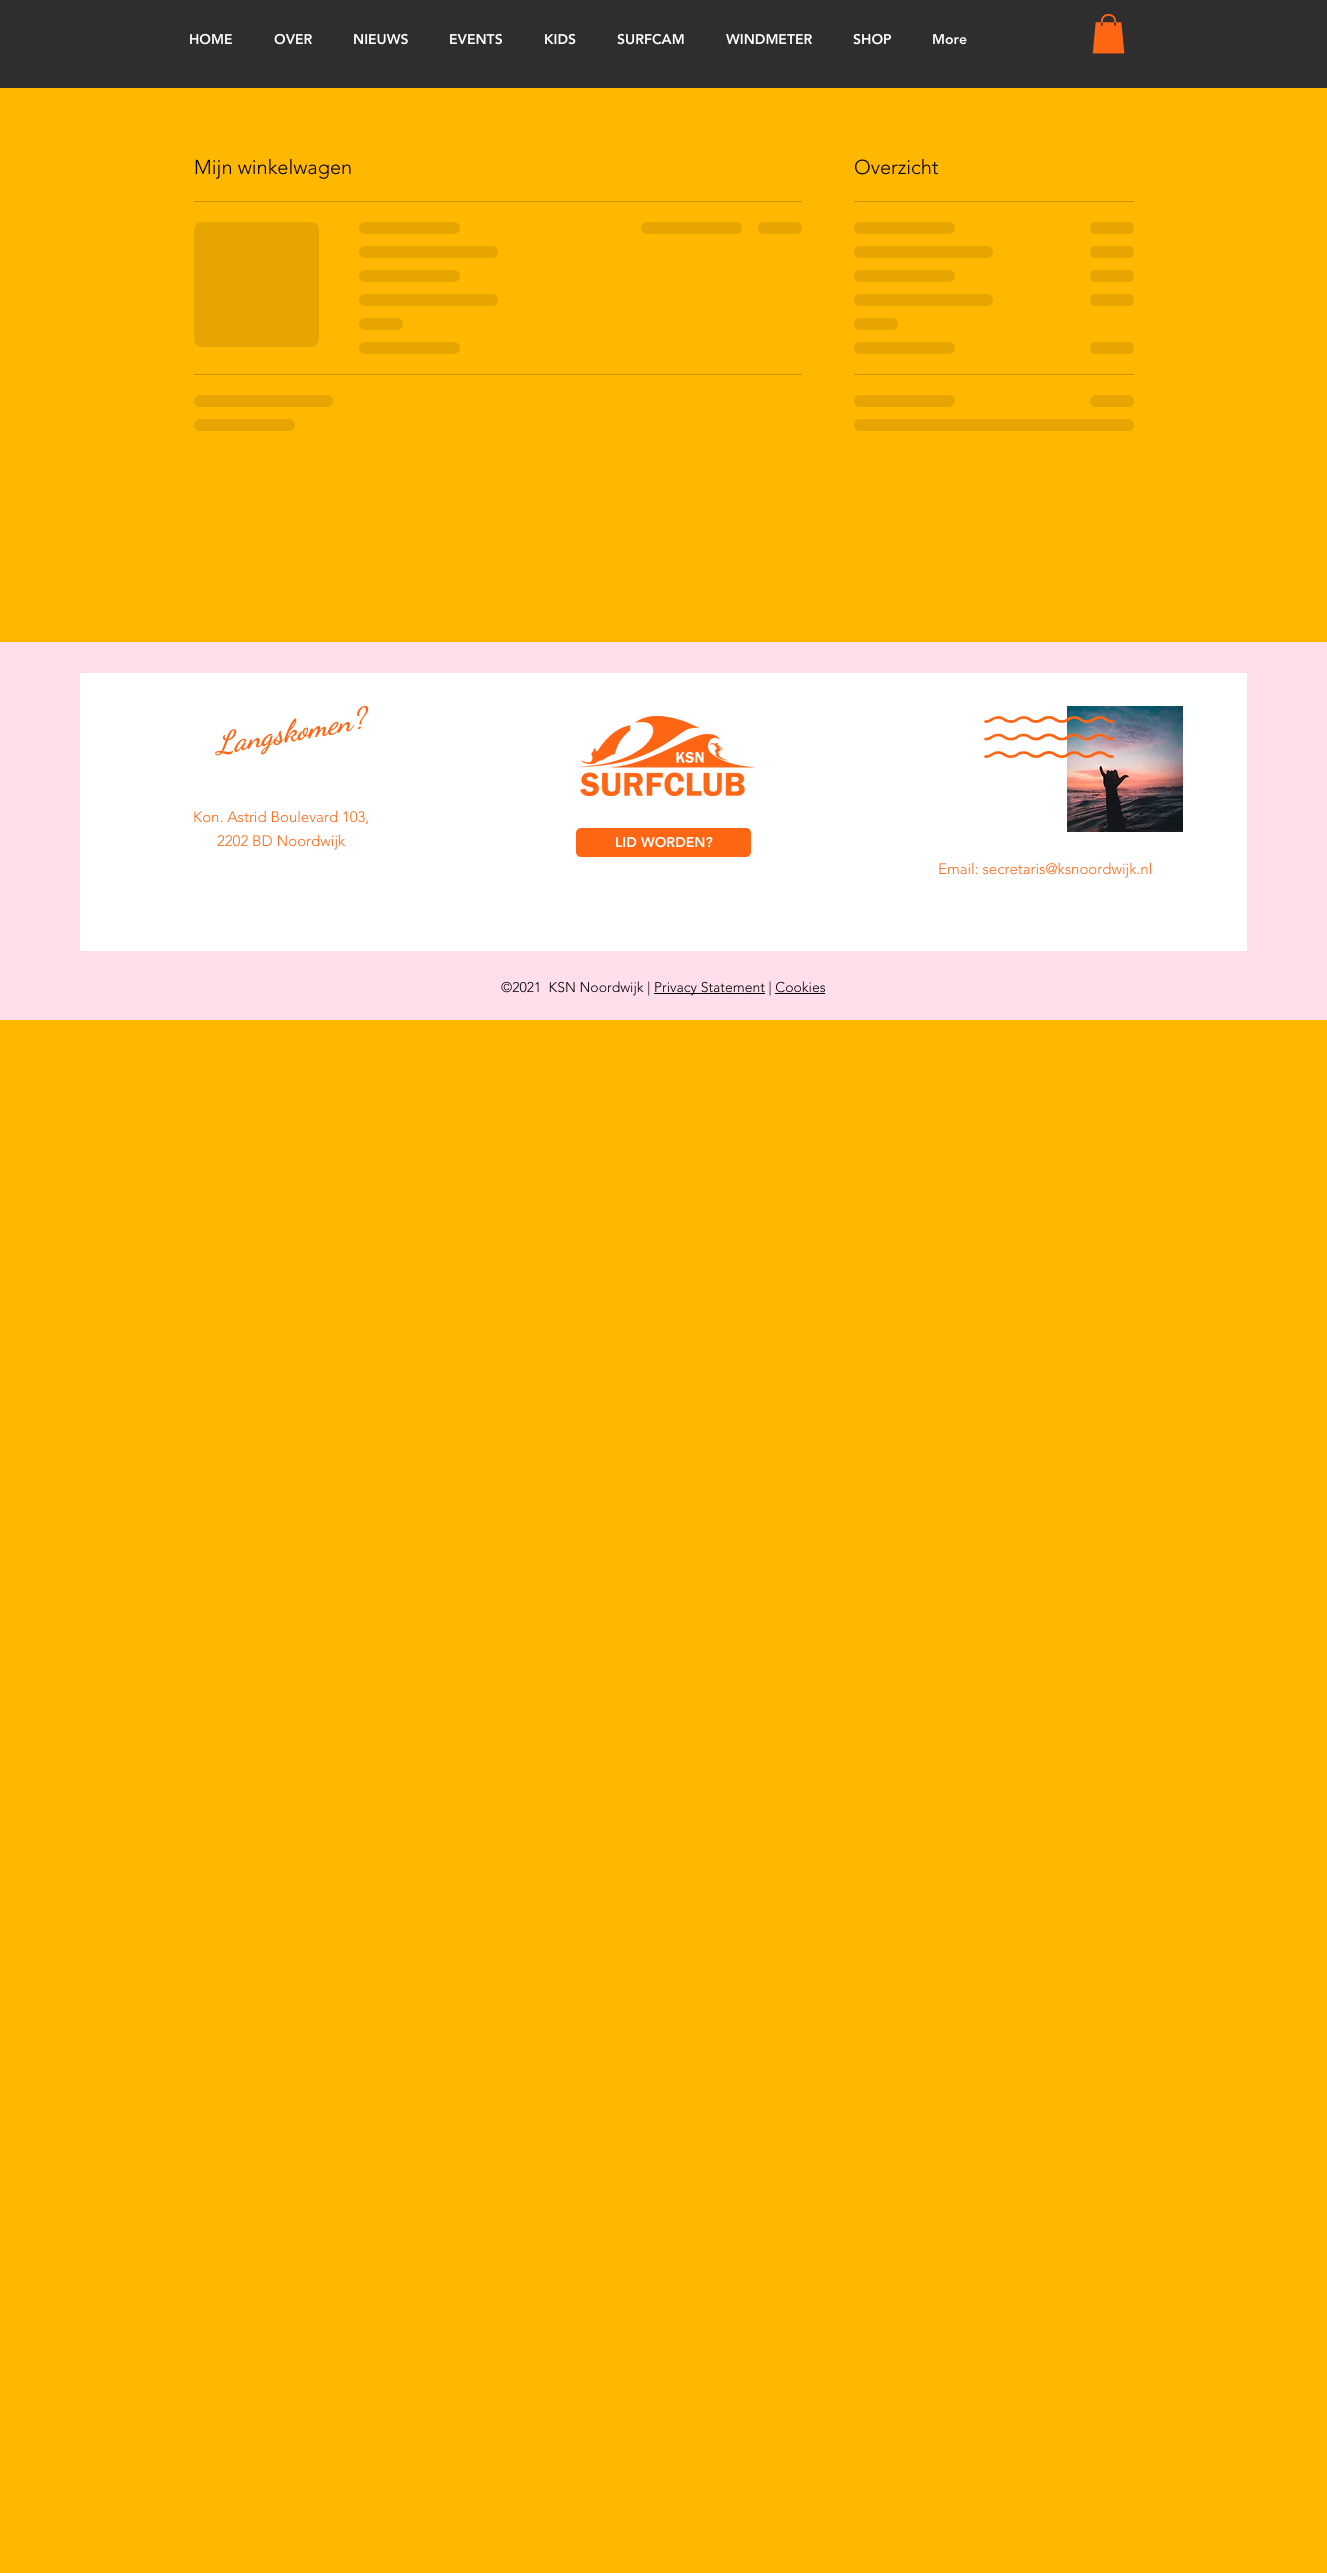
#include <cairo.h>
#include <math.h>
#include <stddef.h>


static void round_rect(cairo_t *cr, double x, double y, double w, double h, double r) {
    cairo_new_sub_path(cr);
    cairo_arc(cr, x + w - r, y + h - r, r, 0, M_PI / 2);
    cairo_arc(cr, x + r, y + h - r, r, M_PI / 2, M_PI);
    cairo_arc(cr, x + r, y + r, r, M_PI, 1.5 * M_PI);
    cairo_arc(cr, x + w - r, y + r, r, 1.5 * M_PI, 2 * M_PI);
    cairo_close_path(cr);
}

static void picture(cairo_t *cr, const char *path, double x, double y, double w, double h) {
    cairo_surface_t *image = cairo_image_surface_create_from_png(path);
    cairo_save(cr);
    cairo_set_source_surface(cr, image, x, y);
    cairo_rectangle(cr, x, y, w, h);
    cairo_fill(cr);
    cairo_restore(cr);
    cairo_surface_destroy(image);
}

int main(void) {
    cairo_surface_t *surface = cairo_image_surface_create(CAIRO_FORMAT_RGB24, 1327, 2573);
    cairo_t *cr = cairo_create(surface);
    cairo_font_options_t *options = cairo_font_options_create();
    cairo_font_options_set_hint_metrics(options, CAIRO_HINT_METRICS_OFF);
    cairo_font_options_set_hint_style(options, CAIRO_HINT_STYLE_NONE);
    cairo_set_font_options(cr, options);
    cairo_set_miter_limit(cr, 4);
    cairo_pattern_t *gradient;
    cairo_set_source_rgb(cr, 1, 0.718, 0);
    cairo_paint(cr);
    cairo_set_source_rgb(cr, 0.184, 0.18, 0.18);
    cairo_rectangle(cr, 0, 0, 1327, 88);
    cairo_fill(cr);
    cairo_select_font_face(cr, "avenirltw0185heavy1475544 Black", CAIRO_FONT_SLANT_NORMAL, CAIRO_FONT_WEIGHT_NORMAL);
    cairo_set_font_size(cr, 14);
    cairo_set_source_rgb(cr, 1, 1, 1);
    cairo_move_to(cr, 189, 44);
    cairo_show_text(cr, "HOME");
    cairo_move_to(cr, 274, 44);
    cairo_show_text(cr, "OVER");
    cairo_move_to(cr, 353, 44);
    cairo_show_text(cr, "NIEUWS");
    cairo_move_to(cr, 449, 44);
    cairo_show_text(cr, "EVENTS");
    cairo_move_to(cr, 544, 44);
    cairo_show_text(cr, "KIDS");
    cairo_move_to(cr, 617, 44);
    cairo_show_text(cr, "SURFCAM");
    cairo_move_to(cr, 726, 44);
    cairo_show_text(cr, "WINDMETER");
    cairo_move_to(cr, 853, 44);
    cairo_show_text(cr, "SHOP");
    cairo_move_to(cr, 932, 44);
    cairo_show_text(cr, "More");
    picture(cr, "img1.png", 1092, 14, 33, 40);
    cairo_set_source_rgb(cr, 0.8, 0.573, 0);
    cairo_rectangle(cr, 194, 201, 608, 1);
    cairo_fill(cr);
    cairo_select_font_face(cr, "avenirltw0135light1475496 Light", CAIRO_FONT_SLANT_NORMAL, CAIRO_FONT_WEIGHT_NORMAL);
    cairo_set_font_size(cr, 20);
    cairo_set_source_rgb(cr, 0, 0, 0);
    cairo_move_to(cr, 194, 174);
    cairo_show_text(cr, "Mijn winkelwagen");
    gradient = cairo_pattern_create_linear(194, 285, 694, 285);
    cairo_pattern_add_color_stop_rgba(gradient, 0.25, 0.902, 0.647, 0, 1);
    cairo_pattern_add_color_stop_rgba(gradient, 0.37, 0.8, 0.573, 0, 1);
    cairo_pattern_add_color_stop_rgba(gradient, 0.63, 0.902, 0.647, 0, 1);
    cairo_set_source(cr, gradient);
    cairo_pattern_destroy(gradient);
    round_rect(cr, 194, 222, 125, 125, 8);
    cairo_fill(cr);
    gradient = cairo_pattern_create_linear(359, 228, 763, 228);
    cairo_pattern_add_color_stop_rgba(gradient, 0.25, 0.902, 0.647, 0, 1);
    cairo_pattern_add_color_stop_rgba(gradient, 0.37, 0.8, 0.573, 0, 1);
    cairo_pattern_add_color_stop_rgba(gradient, 0.63, 0.902, 0.647, 0, 1);
    cairo_set_source(cr, gradient);
    cairo_pattern_destroy(gradient);
    round_rect(cr, 359, 222, 101, 12, 6);
    cairo_fill(cr);
    gradient = cairo_pattern_create_linear(359, 252, 915, 252);
    cairo_pattern_add_color_stop_rgba(gradient, 0.25, 0.902, 0.647, 0, 1);
    cairo_pattern_add_color_stop_rgba(gradient, 0.37, 0.8, 0.573, 0, 1);
    cairo_pattern_add_color_stop_rgba(gradient, 0.63, 0.902, 0.647, 0, 1);
    cairo_set_source(cr, gradient);
    cairo_pattern_destroy(gradient);
    round_rect(cr, 359, 246, 139, 12, 6);
    cairo_fill(cr);
    gradient = cairo_pattern_create_linear(359, 276, 763, 276);
    cairo_pattern_add_color_stop_rgba(gradient, 0.25, 0.902, 0.647, 0, 1);
    cairo_pattern_add_color_stop_rgba(gradient, 0.37, 0.8, 0.573, 0, 1);
    cairo_pattern_add_color_stop_rgba(gradient, 0.63, 0.902, 0.647, 0, 1);
    cairo_set_source(cr, gradient);
    cairo_pattern_destroy(gradient);
    round_rect(cr, 359, 270, 101, 12, 6);
    cairo_fill(cr);
    gradient = cairo_pattern_create_linear(359, 300, 915, 300);
    cairo_pattern_add_color_stop_rgba(gradient, 0.25, 0.902, 0.647, 0, 1);
    cairo_pattern_add_color_stop_rgba(gradient, 0.37, 0.8, 0.573, 0, 1);
    cairo_pattern_add_color_stop_rgba(gradient, 0.63, 0.902, 0.647, 0, 1);
    cairo_set_source(cr, gradient);
    cairo_pattern_destroy(gradient);
    round_rect(cr, 359, 294, 139, 12, 6);
    cairo_fill(cr);
    gradient = cairo_pattern_create_linear(359, 324, 535, 324);
    cairo_pattern_add_color_stop_rgba(gradient, 0.25, 0.902, 0.647, 0, 1);
    cairo_pattern_add_color_stop_rgba(gradient, 0.37, 0.8, 0.573, 0, 1);
    cairo_pattern_add_color_stop_rgba(gradient, 0.63, 0.902, 0.647, 0, 1);
    cairo_set_source(cr, gradient);
    cairo_pattern_destroy(gradient);
    round_rect(cr, 359, 318, 44, 12, 6);
    cairo_fill(cr);
    gradient = cairo_pattern_create_linear(359, 348, 763, 348);
    cairo_pattern_add_color_stop_rgba(gradient, 0.25, 0.902, 0.647, 0, 1);
    cairo_pattern_add_color_stop_rgba(gradient, 0.37, 0.8, 0.573, 0, 1);
    cairo_pattern_add_color_stop_rgba(gradient, 0.63, 0.902, 0.647, 0, 1);
    cairo_set_source(cr, gradient);
    cairo_pattern_destroy(gradient);
    round_rect(cr, 359, 342, 101, 12, 6);
    cairo_fill(cr);
    gradient = cairo_pattern_create_linear(641, 228, 1045, 228);
    cairo_pattern_add_color_stop_rgba(gradient, 0.25, 0.902, 0.647, 0, 1);
    cairo_pattern_add_color_stop_rgba(gradient, 0.37, 0.8, 0.573, 0, 1);
    cairo_pattern_add_color_stop_rgba(gradient, 0.63, 0.902, 0.647, 0, 1);
    cairo_set_source(cr, gradient);
    cairo_pattern_destroy(gradient);
    round_rect(cr, 641, 222, 101, 12, 6);
    cairo_fill(cr);
    gradient = cairo_pattern_create_linear(758, 228, 934, 228);
    cairo_pattern_add_color_stop_rgba(gradient, 0.25, 0.902, 0.647, 0, 1);
    cairo_pattern_add_color_stop_rgba(gradient, 0.37, 0.8, 0.573, 0, 1);
    cairo_pattern_add_color_stop_rgba(gradient, 0.63, 0.902, 0.647, 0, 1);
    cairo_set_source(cr, gradient);
    cairo_pattern_destroy(gradient);
    round_rect(cr, 758, 222, 44, 12, 6);
    cairo_fill(cr);
    cairo_set_source_rgb(cr, 0.8, 0.573, 0);
    cairo_rectangle(cr, 194, 374, 608, 1);
    cairo_fill(cr);
    gradient = cairo_pattern_create_linear(194, 401, 750, 401);
    cairo_pattern_add_color_stop_rgba(gradient, 0.25, 0.902, 0.647, 0, 1);
    cairo_pattern_add_color_stop_rgba(gradient, 0.37, 0.8, 0.573, 0, 1);
    cairo_pattern_add_color_stop_rgba(gradient, 0.63, 0.902, 0.647, 0, 1);
    cairo_set_source(cr, gradient);
    cairo_pattern_destroy(gradient);
    round_rect(cr, 194, 395, 139, 12, 6);
    cairo_fill(cr);
    gradient = cairo_pattern_create_linear(194, 425, 598, 425);
    cairo_pattern_add_color_stop_rgba(gradient, 0.25, 0.902, 0.647, 0, 1);
    cairo_pattern_add_color_stop_rgba(gradient, 0.37, 0.8, 0.573, 0, 1);
    cairo_pattern_add_color_stop_rgba(gradient, 0.63, 0.902, 0.647, 0, 1);
    cairo_set_source(cr, gradient);
    cairo_pattern_destroy(gradient);
    round_rect(cr, 194, 419, 101, 12, 6);
    cairo_fill(cr);
    cairo_set_source_rgb(cr, 0.8, 0.573, 0);
    cairo_rectangle(cr, 854, 201, 280, 1);
    cairo_fill(cr);
    cairo_set_source_rgb(cr, 0, 0, 0);
    cairo_move_to(cr, 854, 174);
    cairo_show_text(cr, "Overzicht");
    gradient = cairo_pattern_create_linear(854, 228, 1258, 228);
    cairo_pattern_add_color_stop_rgba(gradient, 0.25, 0.902, 0.647, 0, 1);
    cairo_pattern_add_color_stop_rgba(gradient, 0.37, 0.8, 0.573, 0, 1);
    cairo_pattern_add_color_stop_rgba(gradient, 0.63, 0.902, 0.647, 0, 1);
    cairo_set_source(cr, gradient);
    cairo_pattern_destroy(gradient);
    round_rect(cr, 854, 222, 101, 12, 6);
    cairo_fill(cr);
    gradient = cairo_pattern_create_linear(1090, 228, 1266, 228);
    cairo_pattern_add_color_stop_rgba(gradient, 0.25, 0.902, 0.647, 0, 1);
    cairo_pattern_add_color_stop_rgba(gradient, 0.37, 0.8, 0.573, 0, 1);
    cairo_pattern_add_color_stop_rgba(gradient, 0.63, 0.902, 0.647, 0, 1);
    cairo_set_source(cr, gradient);
    cairo_pattern_destroy(gradient);
    round_rect(cr, 1090, 222, 44, 12, 6);
    cairo_fill(cr);
    gradient = cairo_pattern_create_linear(854, 252, 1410, 252);
    cairo_pattern_add_color_stop_rgba(gradient, 0.25, 0.902, 0.647, 0, 1);
    cairo_pattern_add_color_stop_rgba(gradient, 0.37, 0.8, 0.573, 0, 1);
    cairo_pattern_add_color_stop_rgba(gradient, 0.63, 0.902, 0.647, 0, 1);
    cairo_set_source(cr, gradient);
    cairo_pattern_destroy(gradient);
    round_rect(cr, 854, 246, 139, 12, 6);
    cairo_fill(cr);
    gradient = cairo_pattern_create_linear(1090, 252, 1266, 252);
    cairo_pattern_add_color_stop_rgba(gradient, 0.25, 0.902, 0.647, 0, 1);
    cairo_pattern_add_color_stop_rgba(gradient, 0.37, 0.8, 0.573, 0, 1);
    cairo_pattern_add_color_stop_rgba(gradient, 0.63, 0.902, 0.647, 0, 1);
    cairo_set_source(cr, gradient);
    cairo_pattern_destroy(gradient);
    round_rect(cr, 1090, 246, 44, 12, 6);
    cairo_fill(cr);
    gradient = cairo_pattern_create_linear(854, 276, 1258, 276);
    cairo_pattern_add_color_stop_rgba(gradient, 0.25, 0.902, 0.647, 0, 1);
    cairo_pattern_add_color_stop_rgba(gradient, 0.37, 0.8, 0.573, 0, 1);
    cairo_pattern_add_color_stop_rgba(gradient, 0.63, 0.902, 0.647, 0, 1);
    cairo_set_source(cr, gradient);
    cairo_pattern_destroy(gradient);
    round_rect(cr, 854, 270, 101, 12, 6);
    cairo_fill(cr);
    gradient = cairo_pattern_create_linear(1090, 276, 1266, 276);
    cairo_pattern_add_color_stop_rgba(gradient, 0.25, 0.902, 0.647, 0, 1);
    cairo_pattern_add_color_stop_rgba(gradient, 0.37, 0.8, 0.573, 0, 1);
    cairo_pattern_add_color_stop_rgba(gradient, 0.63, 0.902, 0.647, 0, 1);
    cairo_set_source(cr, gradient);
    cairo_pattern_destroy(gradient);
    round_rect(cr, 1090, 270, 44, 12, 6);
    cairo_fill(cr);
    gradient = cairo_pattern_create_linear(854, 300, 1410, 300);
    cairo_pattern_add_color_stop_rgba(gradient, 0.25, 0.902, 0.647, 0, 1);
    cairo_pattern_add_color_stop_rgba(gradient, 0.37, 0.8, 0.573, 0, 1);
    cairo_pattern_add_color_stop_rgba(gradient, 0.63, 0.902, 0.647, 0, 1);
    cairo_set_source(cr, gradient);
    cairo_pattern_destroy(gradient);
    round_rect(cr, 854, 294, 139, 12, 6);
    cairo_fill(cr);
    gradient = cairo_pattern_create_linear(1090, 300, 1266, 300);
    cairo_pattern_add_color_stop_rgba(gradient, 0.25, 0.902, 0.647, 0, 1);
    cairo_pattern_add_color_stop_rgba(gradient, 0.37, 0.8, 0.573, 0, 1);
    cairo_pattern_add_color_stop_rgba(gradient, 0.63, 0.902, 0.647, 0, 1);
    cairo_set_source(cr, gradient);
    cairo_pattern_destroy(gradient);
    round_rect(cr, 1090, 294, 44, 12, 6);
    cairo_fill(cr);
    gradient = cairo_pattern_create_linear(854, 324, 1030, 324);
    cairo_pattern_add_color_stop_rgba(gradient, 0.25, 0.902, 0.647, 0, 1);
    cairo_pattern_add_color_stop_rgba(gradient, 0.37, 0.8, 0.573, 0, 1);
    cairo_pattern_add_color_stop_rgba(gradient, 0.63, 0.902, 0.647, 0, 1);
    cairo_set_source(cr, gradient);
    cairo_pattern_destroy(gradient);
    round_rect(cr, 854, 318, 44, 12, 6);
    cairo_fill(cr);
    gradient = cairo_pattern_create_linear(854, 348, 1258, 348);
    cairo_pattern_add_color_stop_rgba(gradient, 0.25, 0.902, 0.647, 0, 1);
    cairo_pattern_add_color_stop_rgba(gradient, 0.37, 0.8, 0.573, 0, 1);
    cairo_pattern_add_color_stop_rgba(gradient, 0.63, 0.902, 0.647, 0, 1);
    cairo_set_source(cr, gradient);
    cairo_pattern_destroy(gradient);
    round_rect(cr, 854, 342, 101, 12, 6);
    cairo_fill(cr);
    gradient = cairo_pattern_create_linear(1090, 348, 1266, 348);
    cairo_pattern_add_color_stop_rgba(gradient, 0.25, 0.902, 0.647, 0, 1);
    cairo_pattern_add_color_stop_rgba(gradient, 0.37, 0.8, 0.573, 0, 1);
    cairo_pattern_add_color_stop_rgba(gradient, 0.63, 0.902, 0.647, 0, 1);
    cairo_set_source(cr, gradient);
    cairo_pattern_destroy(gradient);
    round_rect(cr, 1090, 342, 44, 12, 6);
    cairo_fill(cr);
    cairo_set_source_rgb(cr, 0.8, 0.573, 0);
    cairo_rectangle(cr, 854, 374, 280, 1);
    cairo_fill(cr);
    gradient = cairo_pattern_create_linear(854, 401, 1258, 401);
    cairo_pattern_add_color_stop_rgba(gradient, 0.25, 0.902, 0.647, 0, 1);
    cairo_pattern_add_color_stop_rgba(gradient, 0.37, 0.8, 0.573, 0, 1);
    cairo_pattern_add_color_stop_rgba(gradient, 0.63, 0.902, 0.647, 0, 1);
    cairo_set_source(cr, gradient);
    cairo_pattern_destroy(gradient);
    round_rect(cr, 854, 395, 101, 12, 6);
    cairo_fill(cr);
    gradient = cairo_pattern_create_linear(1090, 401, 1266, 401);
    cairo_pattern_add_color_stop_rgba(gradient, 0.25, 0.902, 0.647, 0, 1);
    cairo_pattern_add_color_stop_rgba(gradient, 0.37, 0.8, 0.573, 0, 1);
    cairo_pattern_add_color_stop_rgba(gradient, 0.63, 0.902, 0.647, 0, 1);
    cairo_set_source(cr, gradient);
    cairo_pattern_destroy(gradient);
    round_rect(cr, 1090, 395, 44, 12, 6);
    cairo_fill(cr);
    gradient = cairo_pattern_create_linear(854, 425, 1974, 425);
    cairo_pattern_add_color_stop_rgba(gradient, 0.25, 0.902, 0.647, 0, 1);
    cairo_pattern_add_color_stop_rgba(gradient, 0.37, 0.8, 0.573, 0, 1);
    cairo_pattern_add_color_stop_rgba(gradient, 0.63, 0.902, 0.647, 0, 1);
    cairo_set_source(cr, gradient);
    cairo_pattern_destroy(gradient);
    round_rect(cr, 854, 419, 280, 12, 6);
    cairo_fill(cr);
    cairo_set_source_rgb(cr, 1, 0.871, 0.918);
    cairo_rectangle(cr, 0, 642, 1327, 378);
    cairo_fill(cr);
    cairo_set_source_rgb(cr, 1, 1, 1);
    cairo_rectangle(cr, 80, 673, 1167, 278);
    cairo_fill(cr);
    cairo_select_font_face(cr, "Dancing Script", CAIRO_FONT_SLANT_ITALIC, CAIRO_FONT_WEIGHT_BOLD);
    cairo_set_font_size(cr, 30);
    cairo_set_source_rgb(cr, 1, 0.4, 0.078);
    cairo_save(cr);
    cairo_translate(cr, 217, 754);
    cairo_rotate(cr, -10 * M_PI / 180);
    cairo_move_to(cr, 0, 0);
    cairo_show_text(cr, "Langskomen?");
    cairo_restore(cr);
    cairo_select_font_face(cr, "avenirltw0135light1475496 Light", CAIRO_FONT_SLANT_NORMAL, CAIRO_FONT_WEIGHT_NORMAL);
    cairo_set_font_size(cr, 15);
    cairo_move_to(cr, 193, 822);
    cairo_show_text(cr, "Kon. Astrid Boulevard 103,");
    cairo_move_to(cr, 217, 846);
    cairo_show_text(cr, "2202 BD Noordwijk");
    picture(cr, "img2.png", 576, 716, 180, 80);
    round_rect(cr, 576, 828, 175, 29, 5);
    cairo_fill(cr);
    cairo_select_font_face(cr, "avenirltw0185heavy1475544 Black", CAIRO_FONT_SLANT_NORMAL, CAIRO_FONT_WEIGHT_NORMAL);
    cairo_set_font_size(cr, 14);
    cairo_set_source_rgb(cr, 1, 1, 1);
    cairo_move_to(cr, 615, 847);
    cairo_show_text(cr, "LID WORDEN?");
    picture(cr, "img4.png", 1067, 706, 116, 126);
    picture(cr, "img3.png", 984, 716, 130, 42);
    cairo_select_font_face(cr, "avenirltw0135light1475496 Light", CAIRO_FONT_SLANT_NORMAL, CAIRO_FONT_WEIGHT_NORMAL);
    cairo_set_font_size(cr, 15);
    cairo_set_source_rgb(cr, 1, 0.4, 0.078);
    cairo_move_to(cr, 938, 874);
    cairo_show_text(cr, "Email: secretaris@ksnoordwijk.nl");
    cairo_set_font_size(cr, 14);
    cairo_set_source_rgb(cr, 0, 0, 0);
    cairo_move_to(cr, 501, 992);
    cairo_show_text(cr, "©2021  KSN Noordwijk |");
    cairo_rectangle(cr, 654, 993, 111, 1);
    cairo_fill(cr);
    cairo_move_to(cr, 654, 992);
    cairo_show_text(cr, "Privacy Statement | Cookies");
    cairo_rectangle(cr, 775, 993, 50, 1);
    cairo_fill(cr);
    cairo_surface_write_to_png(surface, "page.png");
    cairo_font_options_destroy(options);
    cairo_destroy(cr);
    cairo_surface_destroy(surface);
    return 0;
}
